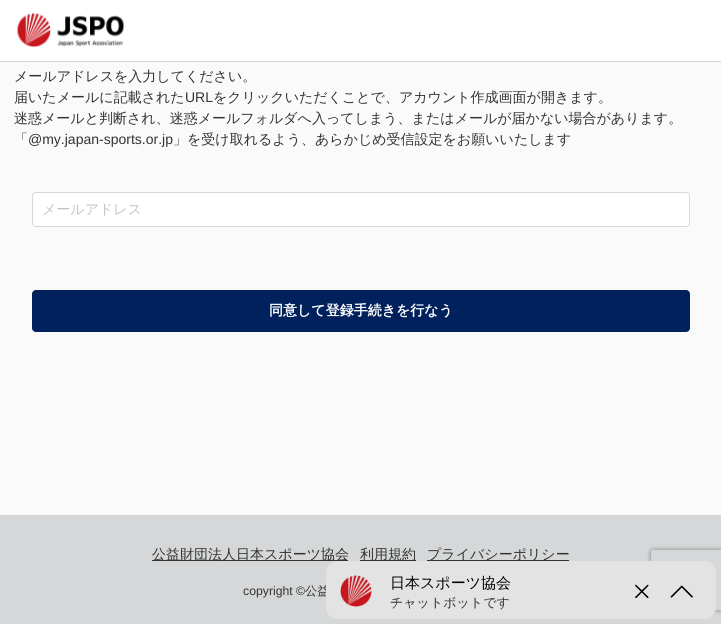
#include <cairo.h>
#include <math.h>
#include <stddef.h>


static void round_rect(cairo_t *cr, double x, double y, double w, double h, double r) {
    cairo_new_sub_path(cr);
    cairo_arc(cr, x + w - r, y + h - r, r, 0, M_PI / 2);
    cairo_arc(cr, x + r, y + h - r, r, M_PI / 2, M_PI);
    cairo_arc(cr, x + r, y + r, r, M_PI, 1.5 * M_PI);
    cairo_arc(cr, x + w - r, y + r, r, 1.5 * M_PI, 2 * M_PI);
    cairo_close_path(cr);
}

static void shadow(cairo_t *cr, double x, double y, double w, double h, double r, double blur, double alpha) {
    cairo_push_group_with_content(cr, CAIRO_CONTENT_ALPHA);
    cairo_set_operator(cr, CAIRO_OPERATOR_SOURCE);
    for (int i = 15; i >= -15 && fmin(w, h) + blur * i / 3 > 0; i -= 2) {
        double e = blur * i / 6;
        cairo_set_source_rgba(cr, 0, 0, 0, alpha * erfc((i - 1) / 8.5) / 2);
        round_rect(cr, x - e, y - e, w + 2 * e, h + 2 * e, fmax(0, fmin(r + e + blur * .6, fmin(w, h) / 2 + e)));
        cairo_fill(cr);
    }
    cairo_pattern_t *soft = cairo_pop_group(cr);
    cairo_mask(cr, soft);
    cairo_pattern_destroy(soft);
}

static void picture(cairo_t *cr, const char *path, double x, double y, double w, double h) {
    cairo_surface_t *image = cairo_image_surface_create_from_png(path);
    cairo_save(cr);
    cairo_set_source_surface(cr, image, x, y);
    cairo_rectangle(cr, x, y, w, h);
    cairo_fill(cr);
    cairo_restore(cr);
    cairo_surface_destroy(image);
}

int main(void) {
    cairo_surface_t *surface = cairo_image_surface_create(CAIRO_FORMAT_RGB24, 721, 624);
    cairo_t *cr = cairo_create(surface);
    cairo_font_options_t *options = cairo_font_options_create();
    cairo_font_options_set_hint_metrics(options, CAIRO_HINT_METRICS_OFF);
    cairo_font_options_set_hint_style(options, CAIRO_HINT_STYLE_NONE);
    cairo_set_font_options(cr, options);
    cairo_set_miter_limit(cr, 4);
    cairo_set_source_rgb(cr, 0.98, 0.98, 0.984);
    cairo_paint(cr);
    cairo_set_source_rgb(cr, 1, 1, 1);
    cairo_rectangle(cr, 0, 0, 721, 61);
    cairo_fill(cr);
    cairo_set_source_rgb(cr, 0.835, 0.843, 0.847);
    cairo_rectangle(cr, 0, 61, 721, 1);
    cairo_fill(cr);
    picture(cr, "img1.png", 16, 12, 109, 36);
    cairo_select_font_face(cr, "WenQuanYi Zen Hei Medium", CAIRO_FONT_SLANT_NORMAL, CAIRO_FONT_WEIGHT_NORMAL);
    cairo_set_font_size(cr, 14);
    cairo_set_source_rgb(cr, 0.2, 0.2, 0.2);
    cairo_move_to(cr, 14, 81);
    cairo_show_text(cr, "メールアドレスを入力してください。");
    cairo_move_to(cr, 14, 102);
    cairo_show_text(cr, "届いたメールに記載された");
    cairo_select_font_face(cr, "Liberation Sans", CAIRO_FONT_SLANT_NORMAL, CAIRO_FONT_WEIGHT_NORMAL);
    cairo_move_to(cr, 185, 102);
    cairo_show_text(cr, "URL");
    cairo_select_font_face(cr, "WenQuanYi Zen Hei Medium", CAIRO_FONT_SLANT_NORMAL, CAIRO_FONT_WEIGHT_NORMAL);
    cairo_move_to(cr, 213, 102);
    cairo_show_text(cr, "をクリックいただくことで、アカウント作成画面が開きます。");
    cairo_move_to(cr, 14, 123);
    cairo_show_text(cr, "迷惑メールと判断され、迷惑メールフォルダへ入ってしまう、またはメールが届かない場合があります。");
    cairo_move_to(cr, 14, 144);
    cairo_show_text(cr, "「");
    cairo_select_font_face(cr, "Liberation Sans", CAIRO_FONT_SLANT_NORMAL, CAIRO_FONT_WEIGHT_NORMAL);
    cairo_move_to(cr, 28, 144);
    cairo_show_text(cr, "@my.japan-sports.or.jp");
    cairo_select_font_face(cr, "WenQuanYi Zen Hei Medium", CAIRO_FONT_SLANT_NORMAL, CAIRO_FONT_WEIGHT_NORMAL);
    cairo_move_to(cr, 173, 144);
    cairo_show_text(cr, "」を受け取れるよう、あらかじめ受信設定をお願いいたします");
    cairo_set_source_rgb(cr, 1, 1, 1);
    round_rect(cr, 32.5, 192.5, 657, 34, 3.5);
    cairo_fill_preserve(cr);
    cairo_set_source_rgb(cr, 0.835, 0.843, 0.847);
    cairo_set_line_width(cr, 1);
    cairo_stroke(cr);
    cairo_set_source_rgb(cr, 0.761, 0.765, 0.765);
    cairo_move_to(cr, 42, 214);
    cairo_show_text(cr, "メールアドレス");
    cairo_set_source_rgb(cr, 0, 0.129, 0.357);
    round_rect(cr, 32, 290, 658, 42, 4);
    cairo_fill(cr);
    cairo_select_font_face(cr, "WenQuanYi Zen Hei", CAIRO_FONT_SLANT_NORMAL, CAIRO_FONT_WEIGHT_BOLD);
    cairo_set_source_rgb(cr, 1, 1, 1);
    cairo_move_to(cr, 269, 315);
    cairo_show_text(cr, "同意して登録手続きを行なう");
    cairo_set_source_rgb(cr, 0.835, 0.843, 0.847);
    cairo_rectangle(cr, 0, 515, 721, 109);
    cairo_fill(cr);
    cairo_set_source_rgb(cr, 0.2, 0.2, 0.2);
    cairo_rectangle(cr, 152, 560, 196, 1);
    cairo_fill(cr);
    cairo_select_font_face(cr, "WenQuanYi Zen Hei Medium", CAIRO_FONT_SLANT_NORMAL, CAIRO_FONT_WEIGHT_NORMAL);
    cairo_move_to(cr, 152, 559);
    cairo_show_text(cr, "公益財団法人日本スポーツ協会");
    cairo_rectangle(cr, 360, 560, 56, 1);
    cairo_fill(cr);
    cairo_move_to(cr, 360, 559);
    cairo_show_text(cr, "利用規約");
    cairo_rectangle(cr, 427, 560, 142, 1);
    cairo_fill(cr);
    cairo_move_to(cr, 427, 559);
    cairo_show_text(cr, "プライバシーポリシー");
    cairo_select_font_face(cr, "Liberation Sans", CAIRO_FONT_SLANT_NORMAL, CAIRO_FONT_WEIGHT_NORMAL);
    cairo_set_font_size(cr, 12.25);
    cairo_move_to(cr, 243, 595);
    cairo_show_text(cr, "copyright ©");
    cairo_select_font_face(cr, "WenQuanYi Zen Hei Medium", CAIRO_FONT_SLANT_NORMAL, CAIRO_FONT_WEIGHT_NORMAL);
    cairo_move_to(cr, 305, 595);
    cairo_show_text(cr, "公益");
    cairo_save(cr);
    cairo_set_fill_rule(cr, CAIRO_FILL_RULE_EVEN_ODD);
    cairo_new_path(cr);
    cairo_move_to(cr, 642, 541);
    cairo_line_to(cr, 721, 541);
    cairo_line_to(cr, 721, 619);
    cairo_line_to(cr, 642, 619);
    cairo_close_path(cr);
    cairo_move_to(cr, 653, 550);
    cairo_line_to(cr, 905, 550);
    cairo_curve_to(cr, 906, 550, 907, 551, 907, 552);
    cairo_line_to(cr, 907, 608);
    cairo_curve_to(cr, 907, 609, 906, 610, 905, 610);
    cairo_line_to(cr, 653, 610);
    cairo_curve_to(cr, 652, 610, 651, 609, 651, 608);
    cairo_line_to(cr, 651, 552);
    cairo_curve_to(cr, 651, 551, 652, 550, 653, 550);
    cairo_close_path(cr);
    cairo_clip(cr);
    cairo_set_source_rgb(cr, 0.502, 0.502, 0.502);
    shadow(cr, 651, 550, 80, 60, 2, 2.5, 1);
    cairo_restore(cr);
    picture(cr, "img2.png", 326, 561, 390, 58);
    cairo_surface_write_to_png(surface, "page.png");
    cairo_font_options_destroy(options);
    cairo_destroy(cr);
    cairo_surface_destroy(surface);
    return 0;
}
